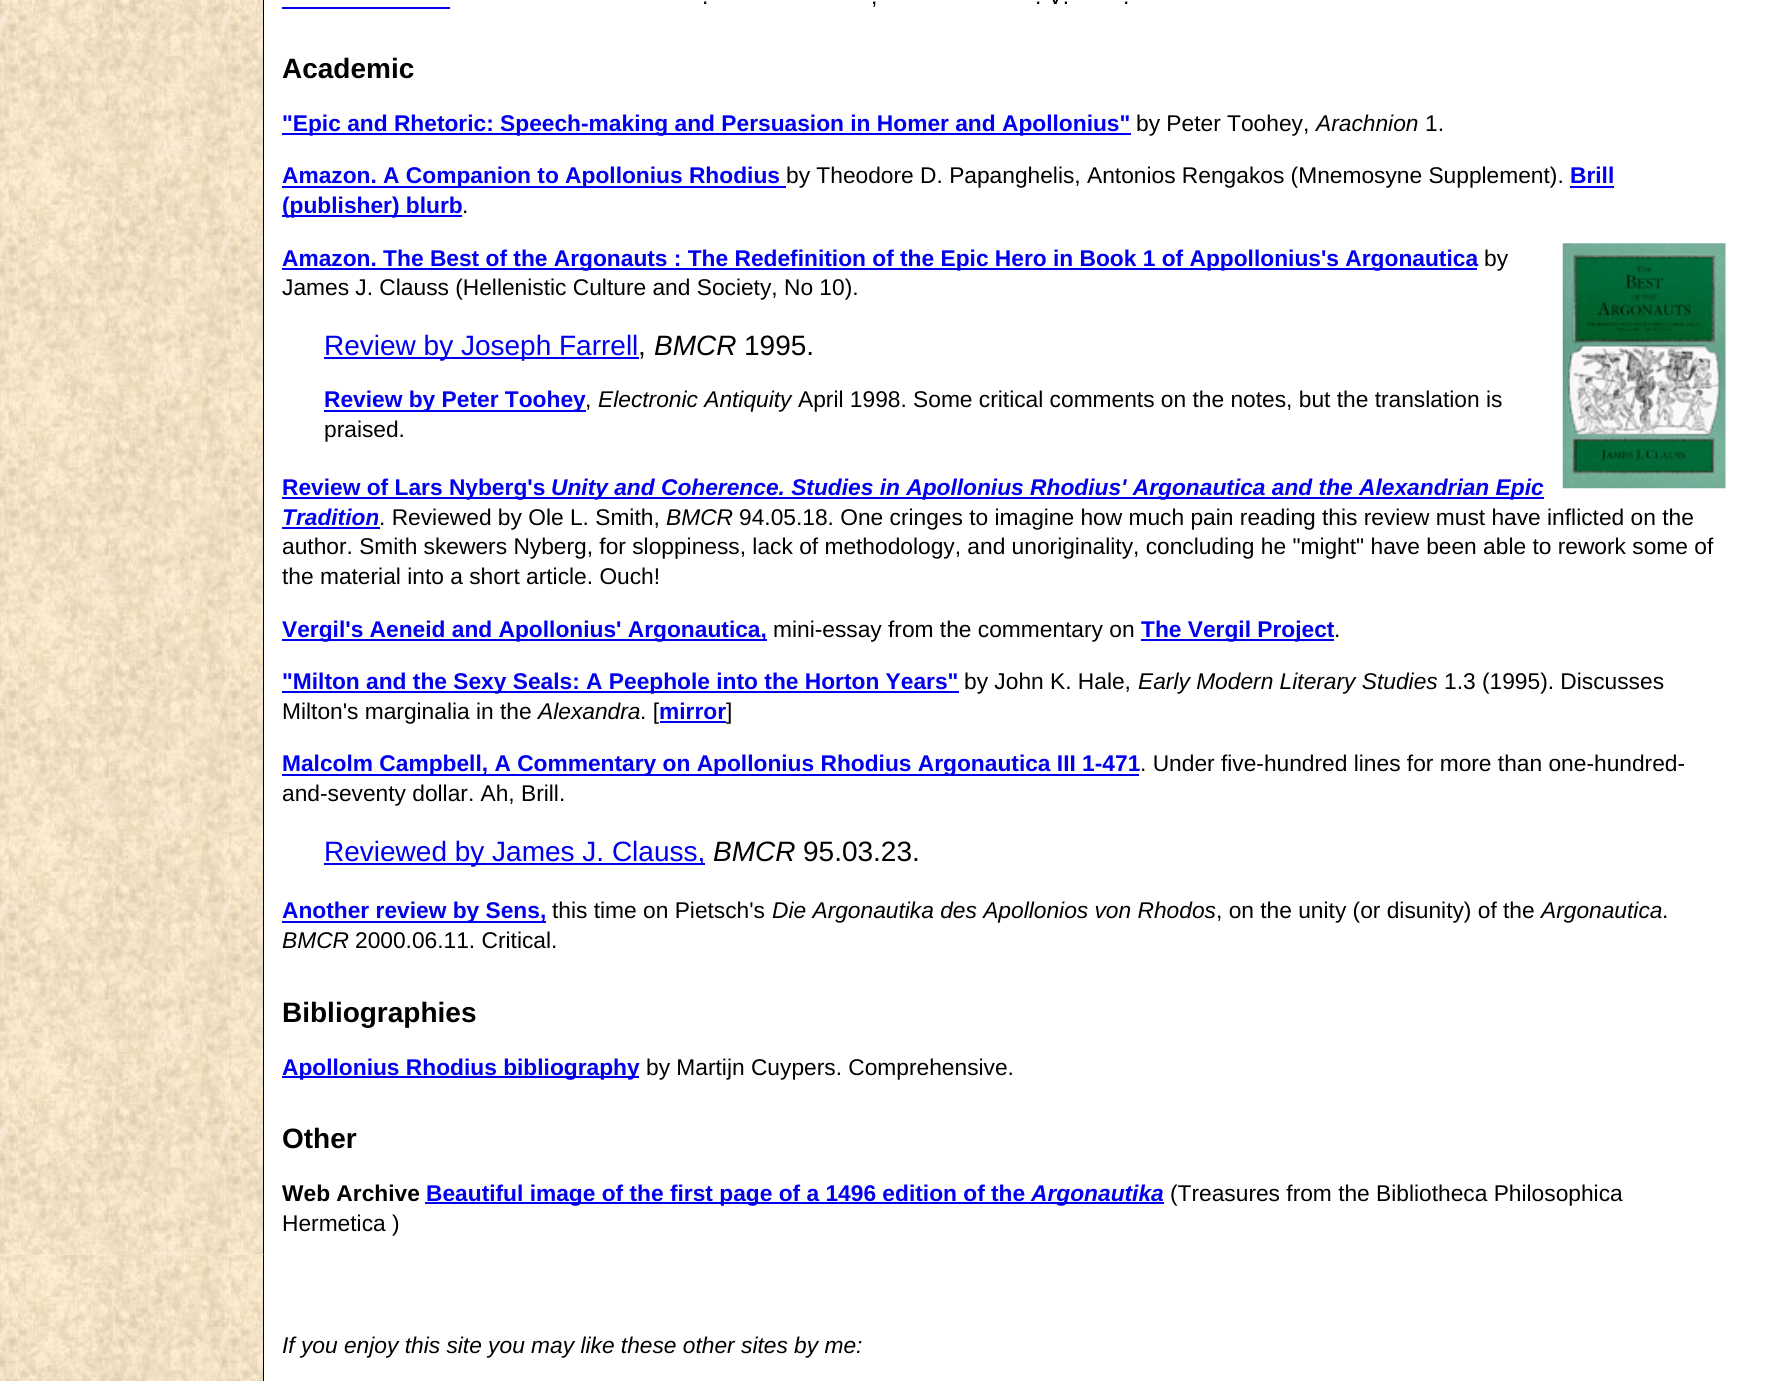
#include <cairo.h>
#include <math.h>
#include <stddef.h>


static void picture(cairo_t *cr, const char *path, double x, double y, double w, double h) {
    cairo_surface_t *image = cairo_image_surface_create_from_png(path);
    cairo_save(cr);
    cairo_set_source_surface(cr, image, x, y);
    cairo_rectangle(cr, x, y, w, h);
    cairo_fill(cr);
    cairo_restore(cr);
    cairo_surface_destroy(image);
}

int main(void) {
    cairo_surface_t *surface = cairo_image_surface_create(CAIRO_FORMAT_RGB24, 1778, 1381);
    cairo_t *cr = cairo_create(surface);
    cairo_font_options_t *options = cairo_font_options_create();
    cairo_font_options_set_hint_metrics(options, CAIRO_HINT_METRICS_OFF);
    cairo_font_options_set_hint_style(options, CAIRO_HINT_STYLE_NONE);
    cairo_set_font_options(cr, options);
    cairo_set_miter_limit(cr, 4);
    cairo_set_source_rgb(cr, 1, 1, 1);
    cairo_paint(cr);
    picture(cr, "img1.png", 0, 0, 263, 1255);
    cairo_set_source_rgb(cr, 0, 0, 0);
    cairo_rectangle(cr, 263, 0, 1, 1255);
    cairo_fill(cr);
    cairo_select_font_face(cr, "Liberation Sans", CAIRO_FONT_SLANT_NORMAL, CAIRO_FONT_WEIGHT_NORMAL);
    cairo_set_font_size(cr, 22.75);
    cairo_move_to(cr, 702, 4);
    cairo_show_text(cr, ".");
    cairo_move_to(cr, 871, 4);
    cairo_show_text(cr, ",");
    cairo_move_to(cr, 1035, 4);
    cairo_show_text(cr, ". V.");
    cairo_move_to(cr, 1123, 4);
    cairo_show_text(cr, ".");
    cairo_set_source_rgb(cr, 0, 0, 0.933);
    cairo_rectangle(cr, 282, 7, 168, 2);
    cairo_fill(cr);
    cairo_select_font_face(cr, "Liberation Sans", CAIRO_FONT_SLANT_NORMAL, CAIRO_FONT_WEIGHT_BOLD);
    cairo_set_font_size(cr, 28);
    cairo_set_source_rgb(cr, 0, 0, 0);
    cairo_move_to(cr, 282, 78);
    cairo_show_text(cr, "Academic");
    cairo_set_source_rgb(cr, 0, 0, 0.933);
    cairo_rectangle(cr, 282, 133, 849, 2);
    cairo_fill(cr);
    cairo_set_font_size(cr, 22.75);
    cairo_move_to(cr, 282, 131);
    cairo_show_text(cr, "\"Epic and Rhetoric: Speech-making and Persuasion in Homer and Apollonius\"");
    cairo_select_font_face(cr, "Liberation Sans", CAIRO_FONT_SLANT_NORMAL, CAIRO_FONT_WEIGHT_NORMAL);
    cairo_set_source_rgb(cr, 0, 0, 0);
    cairo_move_to(cr, 1136, 131);
    cairo_show_text(cr, "by Peter Toohey,");
    cairo_select_font_face(cr, "Liberation Sans", CAIRO_FONT_SLANT_ITALIC, CAIRO_FONT_WEIGHT_NORMAL);
    cairo_move_to(cr, 1316, 131);
    cairo_show_text(cr, "Arachnion");
    cairo_select_font_face(cr, "Liberation Sans", CAIRO_FONT_SLANT_NORMAL, CAIRO_FONT_WEIGHT_NORMAL);
    cairo_move_to(cr, 1425, 131);
    cairo_show_text(cr, "1.");
    cairo_set_source_rgb(cr, 0, 0, 0.933);
    cairo_rectangle(cr, 282, 186, 504, 2);
    cairo_fill(cr);
    cairo_select_font_face(cr, "Liberation Sans", CAIRO_FONT_SLANT_NORMAL, CAIRO_FONT_WEIGHT_BOLD);
    cairo_move_to(cr, 282, 183);
    cairo_show_text(cr, "Amazon. A Companion to Apollonius Rhodius");
    cairo_select_font_face(cr, "Liberation Sans", CAIRO_FONT_SLANT_NORMAL, CAIRO_FONT_WEIGHT_NORMAL);
    cairo_set_source_rgb(cr, 0, 0, 0);
    cairo_move_to(cr, 786, 183);
    cairo_show_text(cr, "by Theodore D. Papanghelis, Antonios Rengakos (Mnemosyne Supplement).");
    cairo_select_font_face(cr, "Liberation Sans", CAIRO_FONT_SLANT_NORMAL, CAIRO_FONT_WEIGHT_BOLD);
    cairo_set_source_rgb(cr, 0, 0, 0.933);
    cairo_move_to(cr, 1570, 183);
    cairo_show_text(cr, "Brill");
    cairo_rectangle(cr, 1570, 186, 44, 2);
    cairo_fill(cr);
    cairo_rectangle(cr, 282, 215, 180, 2);
    cairo_fill(cr);
    cairo_move_to(cr, 282, 213);
    cairo_show_text(cr, "(publisher) blurb");
    cairo_select_font_face(cr, "Liberation Sans", CAIRO_FONT_SLANT_NORMAL, CAIRO_FONT_WEIGHT_NORMAL);
    cairo_set_source_rgb(cr, 0, 0, 0);
    cairo_move_to(cr, 462, 213);
    cairo_show_text(cr, ".");
    cairo_set_source_rgb(cr, 0, 0, 0.933);
    cairo_rectangle(cr, 282, 268, 1195, 2);
    cairo_fill(cr);
    cairo_select_font_face(cr, "Liberation Sans", CAIRO_FONT_SLANT_NORMAL, CAIRO_FONT_WEIGHT_BOLD);
    cairo_move_to(cr, 282, 266);
    cairo_show_text(cr, "Amazon. The Best of the Argonauts : The Redefinition of the Epic Hero in Book 1 of Appollonius's Argonautica");
    picture(cr, "img2.png", 1562, 243, 164, 246);
    cairo_select_font_face(cr, "Liberation Sans", CAIRO_FONT_SLANT_NORMAL, CAIRO_FONT_WEIGHT_NORMAL);
    cairo_set_source_rgb(cr, 0, 0, 0);
    cairo_move_to(cr, 1484, 266);
    cairo_show_text(cr, "by");
    cairo_move_to(cr, 282, 295);
    cairo_show_text(cr, "James J. Clauss (Hellenistic Culture and Society, No 10).");
    cairo_set_source_rgb(cr, 0, 0, 0.933);
    cairo_rectangle(cr, 324, 357, 315, 2);
    cairo_fill(cr);
    cairo_set_font_size(cr, 28);
    cairo_move_to(cr, 324, 355);
    cairo_show_text(cr, "Review by Joseph Farrell");
    cairo_set_source_rgb(cr, 0, 0, 0);
    cairo_move_to(cr, 638, 355);
    cairo_show_text(cr, ",");
    cairo_select_font_face(cr, "Liberation Sans", CAIRO_FONT_SLANT_ITALIC, CAIRO_FONT_WEIGHT_NORMAL);
    cairo_move_to(cr, 654, 355);
    cairo_show_text(cr, "BMCR");
    cairo_select_font_face(cr, "Liberation Sans", CAIRO_FONT_SLANT_NORMAL, CAIRO_FONT_WEIGHT_NORMAL);
    cairo_move_to(cr, 744, 355);
    cairo_show_text(cr, "1995.");
    cairo_set_source_rgb(cr, 0, 0, 0.933);
    cairo_rectangle(cr, 324, 410, 262, 2);
    cairo_fill(cr);
    cairo_select_font_face(cr, "Liberation Sans", CAIRO_FONT_SLANT_NORMAL, CAIRO_FONT_WEIGHT_BOLD);
    cairo_set_font_size(cr, 22.75);
    cairo_move_to(cr, 324, 407);
    cairo_show_text(cr, "Review by Peter Toohey");
    cairo_select_font_face(cr, "Liberation Sans", CAIRO_FONT_SLANT_NORMAL, CAIRO_FONT_WEIGHT_NORMAL);
    cairo_set_source_rgb(cr, 0, 0, 0);
    cairo_move_to(cr, 585, 407);
    cairo_show_text(cr, ",");
    cairo_select_font_face(cr, "Liberation Sans", CAIRO_FONT_SLANT_ITALIC, CAIRO_FONT_WEIGHT_NORMAL);
    cairo_move_to(cr, 598, 407);
    cairo_show_text(cr, "Electronic Antiquity");
    cairo_select_font_face(cr, "Liberation Sans", CAIRO_FONT_SLANT_NORMAL, CAIRO_FONT_WEIGHT_NORMAL);
    cairo_move_to(cr, 798, 407);
    cairo_show_text(cr, "April 1998. Some critical comments on the notes, but the translation is");
    cairo_move_to(cr, 324, 437);
    cairo_show_text(cr, "praised.");
    cairo_set_source_rgb(cr, 0, 0, 0.933);
    cairo_rectangle(cr, 282, 497, 1262, 2);
    cairo_fill(cr);
    cairo_select_font_face(cr, "Liberation Sans", CAIRO_FONT_SLANT_NORMAL, CAIRO_FONT_WEIGHT_BOLD);
    cairo_move_to(cr, 282, 495);
    cairo_show_text(cr, "Review of Lars Nyberg's");
    cairo_select_font_face(cr, "Liberation Sans", CAIRO_FONT_SLANT_ITALIC, CAIRO_FONT_WEIGHT_BOLD);
    cairo_move_to(cr, 551, 495);
    cairo_show_text(cr, "Unity and Coherence. Studies in Apollonius Rhodius' Argonautica and the Alexandrian Epic");
    cairo_move_to(cr, 282, 525);
    cairo_show_text(cr, "Tradition");
    cairo_rectangle(cr, 282, 527, 98, 2);
    cairo_fill(cr);
    cairo_select_font_face(cr, "Liberation Sans", CAIRO_FONT_SLANT_NORMAL, CAIRO_FONT_WEIGHT_NORMAL);
    cairo_set_source_rgb(cr, 0, 0, 0);
    cairo_move_to(cr, 379, 525);
    cairo_show_text(cr, ". Reviewed by Ole L. Smith,");
    cairo_select_font_face(cr, "Liberation Sans", CAIRO_FONT_SLANT_ITALIC, CAIRO_FONT_WEIGHT_NORMAL);
    cairo_move_to(cr, 666, 525);
    cairo_show_text(cr, "BMCR");
    cairo_select_font_face(cr, "Liberation Sans", CAIRO_FONT_SLANT_NORMAL, CAIRO_FONT_WEIGHT_NORMAL);
    cairo_move_to(cr, 739, 525);
    cairo_show_text(cr, "94.05.18. One cringes to imagine how much pain reading this review must have inflicted on the");
    cairo_move_to(cr, 282, 554);
    cairo_show_text(cr, "author. Smith skewers Nyberg, for sloppiness, lack of methodology, and unoriginality, concluding he \"might\" have been able to rework some of");
    cairo_move_to(cr, 282, 584);
    cairo_show_text(cr, "the material into a short article. Ouch!");
    cairo_set_source_rgb(cr, 0, 0, 0.933);
    cairo_rectangle(cr, 282, 639, 485, 2);
    cairo_fill(cr);
    cairo_select_font_face(cr, "Liberation Sans", CAIRO_FONT_SLANT_NORMAL, CAIRO_FONT_WEIGHT_BOLD);
    cairo_move_to(cr, 282, 637);
    cairo_show_text(cr, "Vergil's Aeneid and Apollonius' Argonautica,");
    cairo_select_font_face(cr, "Liberation Sans", CAIRO_FONT_SLANT_NORMAL, CAIRO_FONT_WEIGHT_NORMAL);
    cairo_set_source_rgb(cr, 0, 0, 0);
    cairo_move_to(cr, 773, 637);
    cairo_show_text(cr, "mini-essay from the commentary on");
    cairo_set_source_rgb(cr, 0, 0, 0.933);
    cairo_rectangle(cr, 1141, 639, 193, 2);
    cairo_fill(cr);
    cairo_select_font_face(cr, "Liberation Sans", CAIRO_FONT_SLANT_NORMAL, CAIRO_FONT_WEIGHT_BOLD);
    cairo_move_to(cr, 1141, 637);
    cairo_show_text(cr, "The Vergil Project");
    cairo_select_font_face(cr, "Liberation Sans", CAIRO_FONT_SLANT_NORMAL, CAIRO_FONT_WEIGHT_NORMAL);
    cairo_set_source_rgb(cr, 0, 0, 0);
    cairo_move_to(cr, 1334, 637);
    cairo_show_text(cr, ".");
    cairo_set_source_rgb(cr, 0, 0, 0.933);
    cairo_rectangle(cr, 282, 691, 677, 2);
    cairo_fill(cr);
    cairo_select_font_face(cr, "Liberation Sans", CAIRO_FONT_SLANT_NORMAL, CAIRO_FONT_WEIGHT_BOLD);
    cairo_move_to(cr, 282, 689);
    cairo_show_text(cr, "\"Milton and the Sexy Seals: A Peephole into the Horton Years\"");
    cairo_select_font_face(cr, "Liberation Sans", CAIRO_FONT_SLANT_NORMAL, CAIRO_FONT_WEIGHT_NORMAL);
    cairo_set_source_rgb(cr, 0, 0, 0);
    cairo_move_to(cr, 964, 689);
    cairo_show_text(cr, "by John K. Hale,");
    cairo_select_font_face(cr, "Liberation Sans", CAIRO_FONT_SLANT_ITALIC, CAIRO_FONT_WEIGHT_NORMAL);
    cairo_move_to(cr, 1138, 689);
    cairo_show_text(cr, "Early Modern Literary Studies");
    cairo_select_font_face(cr, "Liberation Sans", CAIRO_FONT_SLANT_NORMAL, CAIRO_FONT_WEIGHT_NORMAL);
    cairo_move_to(cr, 1444, 689);
    cairo_show_text(cr, "1.3 (1995). Discusses");
    cairo_move_to(cr, 282, 719);
    cairo_show_text(cr, "Milton's marginalia in the");
    cairo_select_font_face(cr, "Liberation Sans", CAIRO_FONT_SLANT_ITALIC, CAIRO_FONT_WEIGHT_NORMAL);
    cairo_move_to(cr, 538, 719);
    cairo_show_text(cr, "Alexandra");
    cairo_select_font_face(cr, "Liberation Sans", CAIRO_FONT_SLANT_NORMAL, CAIRO_FONT_WEIGHT_NORMAL);
    cairo_move_to(cr, 640, 719);
    cairo_show_text(cr, ". [");
    cairo_select_font_face(cr, "Liberation Sans", CAIRO_FONT_SLANT_NORMAL, CAIRO_FONT_WEIGHT_BOLD);
    cairo_set_source_rgb(cr, 0, 0, 0.933);
    cairo_move_to(cr, 659, 719);
    cairo_show_text(cr, "mirror");
    cairo_rectangle(cr, 660, 721, 66, 2);
    cairo_fill(cr);
    cairo_select_font_face(cr, "Liberation Sans", CAIRO_FONT_SLANT_NORMAL, CAIRO_FONT_WEIGHT_NORMAL);
    cairo_set_source_rgb(cr, 0, 0, 0);
    cairo_move_to(cr, 726, 719);
    cairo_show_text(cr, "]");
    cairo_set_source_rgb(cr, 0, 0, 0.933);
    cairo_rectangle(cr, 282, 774, 857, 2);
    cairo_fill(cr);
    cairo_select_font_face(cr, "Liberation Sans", CAIRO_FONT_SLANT_NORMAL, CAIRO_FONT_WEIGHT_BOLD);
    cairo_move_to(cr, 282, 771);
    cairo_show_text(cr, "Malcolm Campbell, A Commentary on Apollonius Rhodius Argonautica III 1-471");
    cairo_select_font_face(cr, "Liberation Sans", CAIRO_FONT_SLANT_NORMAL, CAIRO_FONT_WEIGHT_NORMAL);
    cairo_set_source_rgb(cr, 0, 0, 0);
    cairo_move_to(cr, 1140, 771);
    cairo_show_text(cr, ". Under five-hundred lines for more than one-hundred-");
    cairo_move_to(cr, 282, 801);
    cairo_show_text(cr, "and-seventy dollar. Ah, Brill.");
    cairo_set_source_rgb(cr, 0, 0, 0.933);
    cairo_rectangle(cr, 324, 863, 381, 2);
    cairo_fill(cr);
    cairo_set_font_size(cr, 28);
    cairo_move_to(cr, 324, 861);
    cairo_show_text(cr, "Reviewed by James J. Clauss,");
    cairo_select_font_face(cr, "Liberation Sans", CAIRO_FONT_SLANT_ITALIC, CAIRO_FONT_WEIGHT_NORMAL);
    cairo_set_source_rgb(cr, 0, 0, 0);
    cairo_move_to(cr, 713, 861);
    cairo_show_text(cr, "BMCR");
    cairo_select_font_face(cr, "Liberation Sans", CAIRO_FONT_SLANT_NORMAL, CAIRO_FONT_WEIGHT_NORMAL);
    cairo_move_to(cr, 803, 861);
    cairo_show_text(cr, "95.03.23.");
    cairo_set_source_rgb(cr, 0, 0, 0.933);
    cairo_rectangle(cr, 282, 921, 264, 2);
    cairo_fill(cr);
    cairo_select_font_face(cr, "Liberation Sans", CAIRO_FONT_SLANT_NORMAL, CAIRO_FONT_WEIGHT_BOLD);
    cairo_set_font_size(cr, 22.75);
    cairo_move_to(cr, 282, 918);
    cairo_show_text(cr, "Another review by Sens,");
    cairo_select_font_face(cr, "Liberation Sans", CAIRO_FONT_SLANT_NORMAL, CAIRO_FONT_WEIGHT_NORMAL);
    cairo_set_source_rgb(cr, 0, 0, 0);
    cairo_move_to(cr, 552, 918);
    cairo_show_text(cr, "this time on Pietsch's");
    cairo_select_font_face(cr, "Liberation Sans", CAIRO_FONT_SLANT_ITALIC, CAIRO_FONT_WEIGHT_NORMAL);
    cairo_move_to(cr, 772, 918);
    cairo_show_text(cr, "Die Argonautika des Apollonios von Rhodos");
    cairo_select_font_face(cr, "Liberation Sans", CAIRO_FONT_SLANT_NORMAL, CAIRO_FONT_WEIGHT_NORMAL);
    cairo_move_to(cr, 1216, 918);
    cairo_show_text(cr, ", on the unity (or disunity) of the");
    cairo_select_font_face(cr, "Liberation Sans", CAIRO_FONT_SLANT_ITALIC, CAIRO_FONT_WEIGHT_NORMAL);
    cairo_move_to(cr, 1541, 918);
    cairo_show_text(cr, "Argonautica");
    cairo_select_font_face(cr, "Liberation Sans", CAIRO_FONT_SLANT_NORMAL, CAIRO_FONT_WEIGHT_NORMAL);
    cairo_move_to(cr, 1662, 918);
    cairo_show_text(cr, ".");
    cairo_select_font_face(cr, "Liberation Sans", CAIRO_FONT_SLANT_ITALIC, CAIRO_FONT_WEIGHT_NORMAL);
    cairo_move_to(cr, 282, 948);
    cairo_show_text(cr, "BMCR");
    cairo_select_font_face(cr, "Liberation Sans", CAIRO_FONT_SLANT_NORMAL, CAIRO_FONT_WEIGHT_NORMAL);
    cairo_move_to(cr, 355, 948);
    cairo_show_text(cr, "2000.06.11. Critical.");
    cairo_select_font_face(cr, "Liberation Sans", CAIRO_FONT_SLANT_NORMAL, CAIRO_FONT_WEIGHT_BOLD);
    cairo_set_font_size(cr, 28);
    cairo_move_to(cr, 282, 1022);
    cairo_show_text(cr, "Bibliographies");
    cairo_set_source_rgb(cr, 0, 0, 0.933);
    cairo_rectangle(cr, 282, 1076, 357, 2);
    cairo_fill(cr);
    cairo_set_font_size(cr, 22.75);
    cairo_move_to(cr, 282, 1075);
    cairo_show_text(cr, "Apollonius Rhodius bibliography");
    cairo_select_font_face(cr, "Liberation Sans", CAIRO_FONT_SLANT_NORMAL, CAIRO_FONT_WEIGHT_NORMAL);
    cairo_set_source_rgb(cr, 0, 0, 0);
    cairo_move_to(cr, 646, 1075);
    cairo_show_text(cr, "by Martijn Cuypers. Comprehensive.");
    cairo_select_font_face(cr, "Liberation Sans", CAIRO_FONT_SLANT_NORMAL, CAIRO_FONT_WEIGHT_BOLD);
    cairo_set_font_size(cr, 28);
    cairo_move_to(cr, 282, 1148);
    cairo_show_text(cr, "Other");
    cairo_set_font_size(cr, 22.75);
    cairo_move_to(cr, 282, 1201);
    cairo_show_text(cr, "Web Archive");
    cairo_set_source_rgb(cr, 0, 0, 0.933);
    cairo_rectangle(cr, 425, 1202, 739, 2);
    cairo_fill(cr);
    cairo_move_to(cr, 426, 1201);
    cairo_show_text(cr, "Beautiful image of the first page of a 1496 edition of the");
    cairo_select_font_face(cr, "Liberation Sans", CAIRO_FONT_SLANT_ITALIC, CAIRO_FONT_WEIGHT_BOLD);
    cairo_move_to(cr, 1031, 1201);
    cairo_show_text(cr, "Argonautika");
    cairo_select_font_face(cr, "Liberation Sans", CAIRO_FONT_SLANT_NORMAL, CAIRO_FONT_WEIGHT_NORMAL);
    cairo_set_source_rgb(cr, 0, 0, 0);
    cairo_move_to(cr, 1170, 1201);
    cairo_show_text(cr, "(Treasures from the Bibliotheca Philosophica");
    cairo_move_to(cr, 282, 1231);
    cairo_show_text(cr, "Hermetica )");
    picture(cr, "img3.png", 0, 1254, 265, 127);
    cairo_rectangle(cr, 263, 1255, 1, 126);
    cairo_fill(cr);
    cairo_set_source_rgb(cr, 1, 1, 1);
    cairo_rectangle(cr, 264, 1255, 1, 126);
    cairo_fill(cr);
    cairo_select_font_face(cr, "Liberation Sans", CAIRO_FONT_SLANT_ITALIC, CAIRO_FONT_WEIGHT_NORMAL);
    cairo_set_source_rgb(cr, 0, 0, 0);
    cairo_move_to(cr, 282, 1353);
    cairo_show_text(cr, "If you enjoy this site you may like these other sites by me:");
    cairo_surface_write_to_png(surface, "page.png");
    cairo_font_options_destroy(options);
    cairo_destroy(cr);
    cairo_surface_destroy(surface);
    return 0;
}
